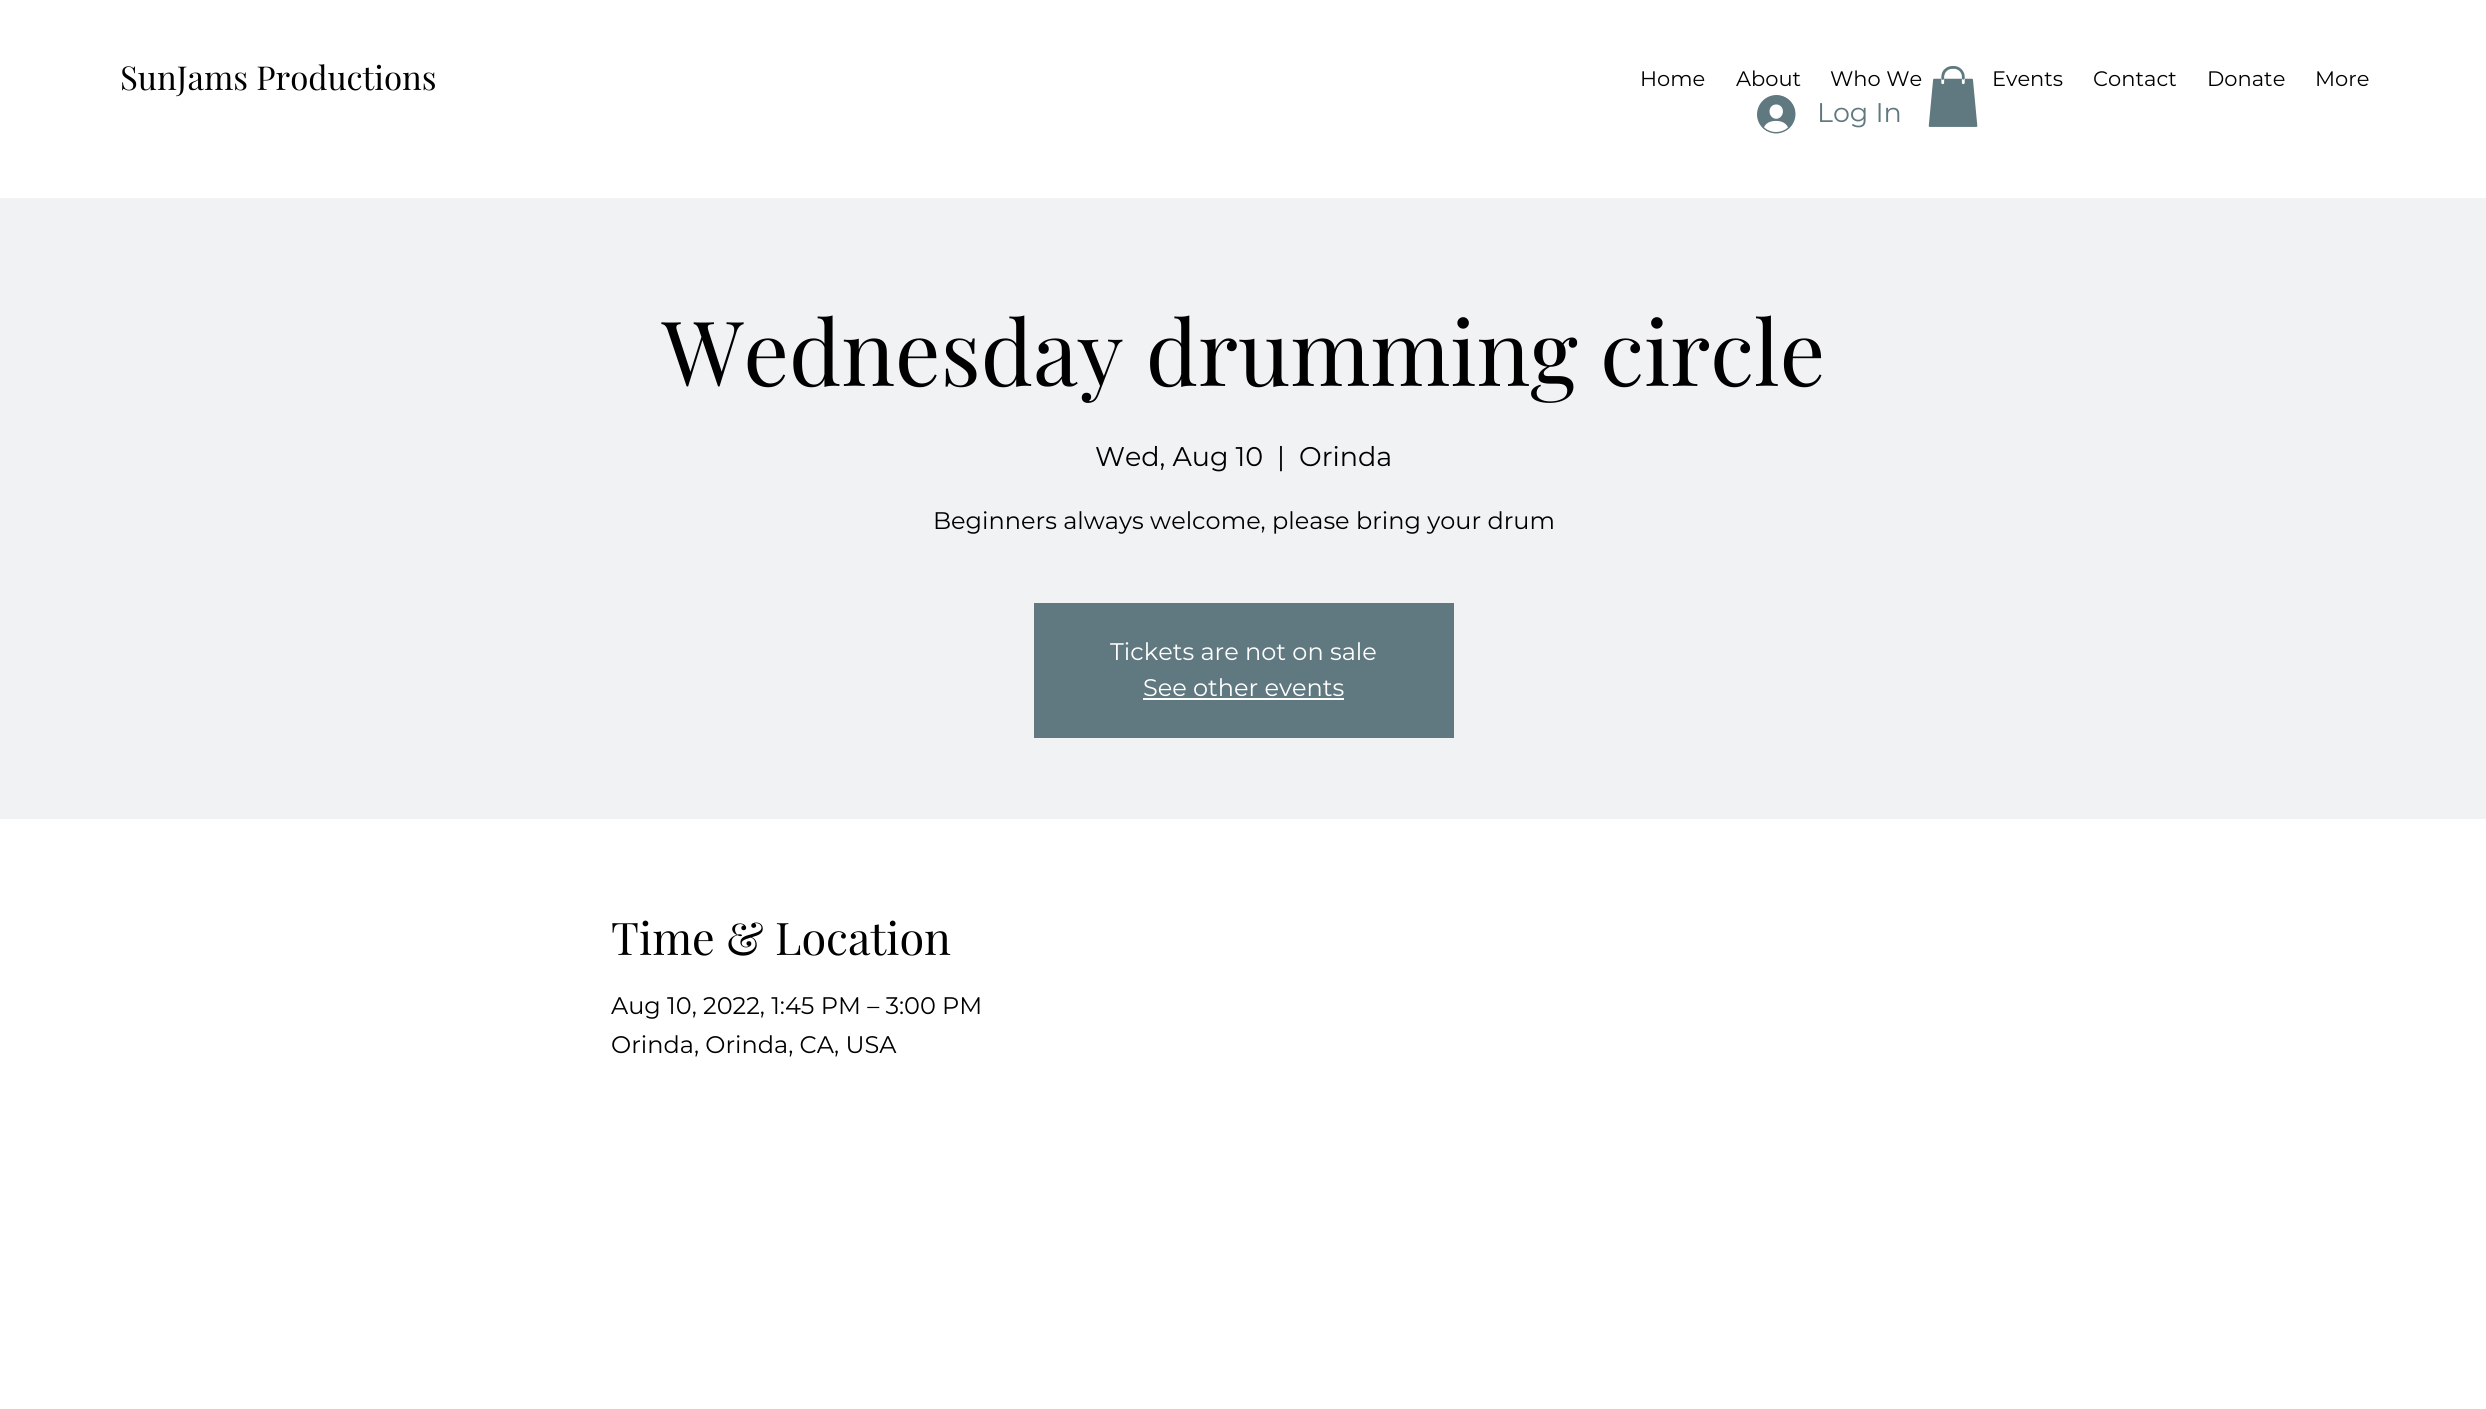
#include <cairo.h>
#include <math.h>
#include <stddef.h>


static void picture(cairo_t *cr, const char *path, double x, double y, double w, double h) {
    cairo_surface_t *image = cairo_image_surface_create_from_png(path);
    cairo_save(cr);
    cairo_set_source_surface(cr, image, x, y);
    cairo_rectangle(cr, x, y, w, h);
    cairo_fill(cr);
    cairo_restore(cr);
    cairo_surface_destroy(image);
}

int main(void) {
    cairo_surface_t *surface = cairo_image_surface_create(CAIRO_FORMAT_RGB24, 2486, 1409);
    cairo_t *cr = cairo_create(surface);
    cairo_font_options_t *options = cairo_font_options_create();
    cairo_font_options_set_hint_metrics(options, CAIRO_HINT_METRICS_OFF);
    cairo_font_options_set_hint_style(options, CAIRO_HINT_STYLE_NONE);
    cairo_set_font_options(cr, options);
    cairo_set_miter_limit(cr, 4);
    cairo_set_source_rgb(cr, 1, 1, 1);
    cairo_paint(cr);
    cairo_select_font_face(cr, "Playfair Display", CAIRO_FONT_SLANT_NORMAL, CAIRO_FONT_WEIGHT_NORMAL);
    cairo_set_font_size(cr, 33);
    cairo_set_source_rgb(cr, 0, 0, 0);
    cairo_move_to(cr, 120, 90);
    cairo_show_text(cr, "SunJams Productions");
    cairo_select_font_face(cr, "Montserrat", CAIRO_FONT_SLANT_NORMAL, CAIRO_FONT_WEIGHT_NORMAL);
    cairo_set_font_size(cr, 21);
    cairo_move_to(cr, 1640, 86);
    cairo_show_text(cr, "Home");
    cairo_move_to(cr, 1736, 86);
    cairo_show_text(cr, "About");
    cairo_move_to(cr, 1830, 86);
    cairo_show_text(cr, "Who We");
    cairo_move_to(cr, 1992, 86);
    cairo_show_text(cr, "Events");
    cairo_move_to(cr, 2093, 86);
    cairo_show_text(cr, "Contact");
    cairo_move_to(cr, 2207, 86);
    cairo_show_text(cr, "Donate");
    cairo_move_to(cr, 2315, 86);
    cairo_show_text(cr, "More");
    picture(cr, "img1.png", 1757, 95, 39, 39);
    cairo_set_font_size(cr, 27);
    cairo_set_source_rgb(cr, 0.376, 0.475, 0.502);
    cairo_move_to(cr, 1817, 122);
    cairo_show_text(cr, "Log In");
    picture(cr, "img2.png", 1928, 66, 50, 61);
    cairo_set_source_rgb(cr, 0.941, 0.949, 0.953);
    cairo_rectangle(cr, 0, 198, 2486, 621);
    cairo_fill(cr);
    cairo_select_font_face(cr, "Playfair Display", CAIRO_FONT_SLANT_NORMAL, CAIRO_FONT_WEIGHT_NORMAL);
    cairo_set_font_size(cr, 90);
    cairo_set_source_rgb(cr, 0, 0, 0);
    cairo_move_to(cr, 662, 386);
    cairo_show_text(cr, "Wednesday drumming circle");
    cairo_select_font_face(cr, "Montserrat", CAIRO_FONT_SLANT_NORMAL, CAIRO_FONT_WEIGHT_NORMAL);
    cairo_set_font_size(cr, 27);
    cairo_move_to(cr, 1095, 466);
    cairo_show_text(cr, "Wed, Aug 10");
    cairo_move_to(cr, 1277, 466);
    cairo_show_text(cr, "|");
    cairo_move_to(cr, 1299, 466);
    cairo_show_text(cr, "Orinda");
    cairo_set_font_size(cr, 24);
    cairo_move_to(cr, 933, 529);
    cairo_show_text(cr, "Beginners always welcome, please bring your drum");
    cairo_set_source_rgb(cr, 0.376, 0.475, 0.502);
    cairo_rectangle(cr, 1034, 603, 420, 135);
    cairo_fill(cr);
    cairo_set_source_rgb(cr, 1, 1, 1);
    cairo_move_to(cr, 1110, 660);
    cairo_show_text(cr, "Tickets are not on sale");
    cairo_move_to(cr, 1143, 696);
    cairo_show_text(cr, "See other events");
    cairo_rectangle(cr, 1143, 698, 201, 2);
    cairo_fill(cr);
    cairo_select_font_face(cr, "Playfair Display", CAIRO_FONT_SLANT_NORMAL, CAIRO_FONT_WEIGHT_NORMAL);
    cairo_set_font_size(cr, 45);
    cairo_set_source_rgb(cr, 0, 0, 0);
    cairo_move_to(cr, 611, 955);
    cairo_show_text(cr, "Time & Location");
    cairo_select_font_face(cr, "Montserrat", CAIRO_FONT_SLANT_NORMAL, CAIRO_FONT_WEIGHT_NORMAL);
    cairo_set_font_size(cr, 24);
    cairo_move_to(cr, 611, 1014);
    cairo_show_text(cr, "Aug 10, 2022, 1:45 PM – 3:00 PM");
    cairo_move_to(cr, 611, 1053);
    cairo_show_text(cr, "Orinda, Orinda, CA, USA");
    cairo_surface_write_to_png(surface, "page.png");
    cairo_font_options_destroy(options);
    cairo_destroy(cr);
    cairo_surface_destroy(surface);
    return 0;
}
